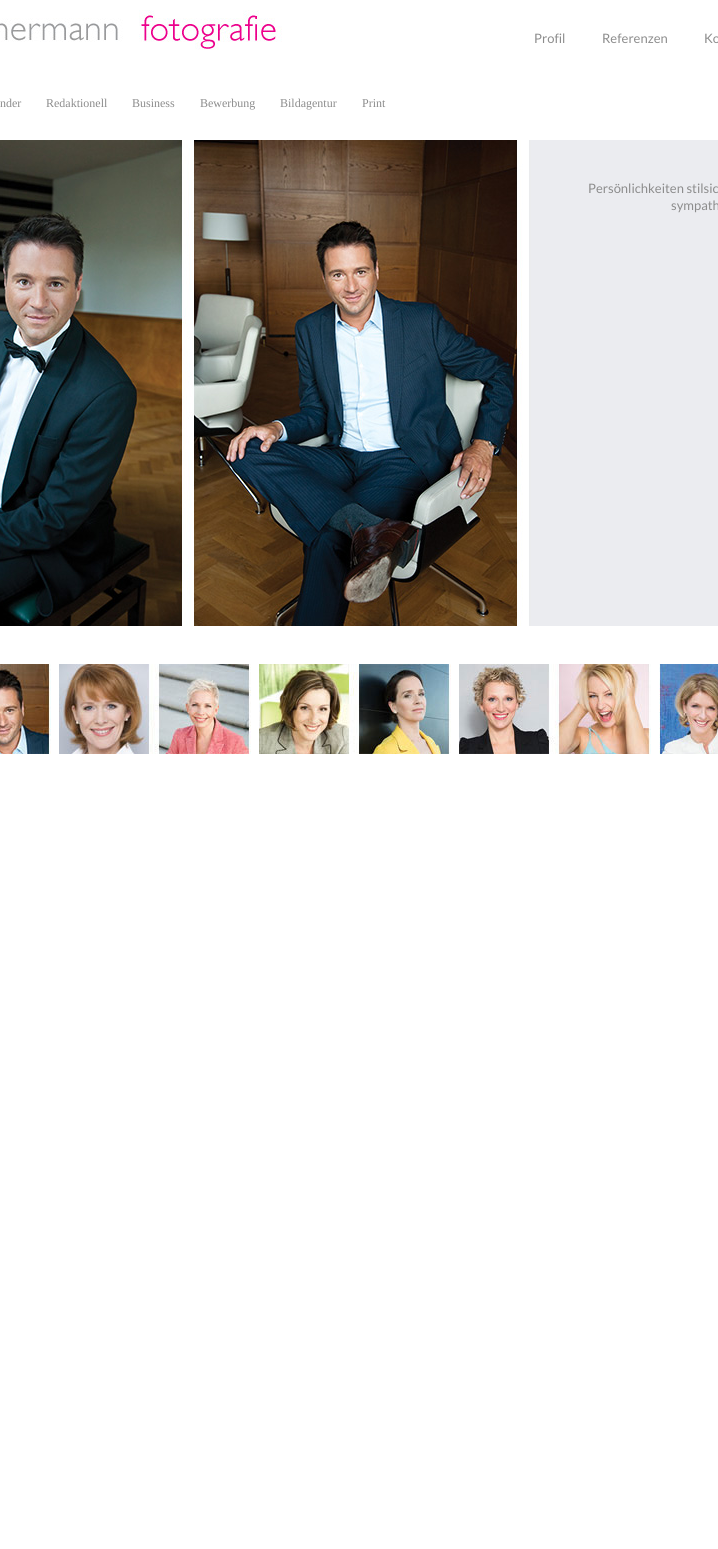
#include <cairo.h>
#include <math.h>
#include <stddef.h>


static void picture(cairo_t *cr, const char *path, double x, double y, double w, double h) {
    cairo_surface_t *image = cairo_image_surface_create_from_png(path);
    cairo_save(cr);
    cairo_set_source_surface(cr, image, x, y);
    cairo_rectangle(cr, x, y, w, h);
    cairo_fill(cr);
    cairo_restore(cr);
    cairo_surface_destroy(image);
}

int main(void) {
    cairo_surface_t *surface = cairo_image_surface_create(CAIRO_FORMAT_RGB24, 718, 1549);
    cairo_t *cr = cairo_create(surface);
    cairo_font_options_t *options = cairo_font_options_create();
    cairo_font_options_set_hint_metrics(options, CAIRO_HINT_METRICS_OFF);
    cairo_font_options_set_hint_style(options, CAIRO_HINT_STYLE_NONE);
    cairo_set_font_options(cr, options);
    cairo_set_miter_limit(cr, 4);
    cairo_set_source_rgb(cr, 1, 1, 1);
    cairo_paint(cr);
    picture(cr, "img1.png", 0, 10, 282, 40);
    cairo_select_font_face(cr, "Lato", CAIRO_FONT_SLANT_NORMAL, CAIRO_FONT_WEIGHT_NORMAL);
    cairo_set_font_size(cr, 13);
    cairo_set_source_rgb(cr, 0.549, 0.549, 0.549);
    cairo_move_to(cr, 534, 43);
    cairo_show_text(cr, "Profil");
    cairo_move_to(cr, 602, 43);
    cairo_show_text(cr, "Referenzen");
    cairo_move_to(cr, 704, 43);
    cairo_show_text(cr, "Ko");
    cairo_select_font_face(cr, "Liberation Serif", CAIRO_FONT_SLANT_NORMAL, CAIRO_FONT_WEIGHT_NORMAL);
    cairo_set_font_size(cr, 12);
    cairo_move_to(cr, 0, 107);
    cairo_show_text(cr, "nder");
    cairo_move_to(cr, 46, 107);
    cairo_show_text(cr, "Redaktionell");
    cairo_move_to(cr, 132, 107);
    cairo_show_text(cr, "Business");
    cairo_move_to(cr, 200, 107);
    cairo_show_text(cr, "Bewerbung");
    cairo_move_to(cr, 280, 107);
    cairo_show_text(cr, "Bildagentur");
    cairo_move_to(cr, 362, 107);
    cairo_show_text(cr, "Print");
    picture(cr, "img2.png", 0, 140, 718, 486);
    cairo_select_font_face(cr, "Lato", CAIRO_FONT_SLANT_NORMAL, CAIRO_FONT_WEIGHT_NORMAL);
    cairo_set_font_size(cr, 13);
    cairo_move_to(cr, 588, 193);
    cairo_show_text(cr, "Persönlichkeiten stilsic");
    cairo_move_to(cr, 671, 210);
    cairo_show_text(cr, "sympath");
    picture(cr, "img3.png", 0, 664, 718, 90);
    cairo_surface_write_to_png(surface, "page.png");
    cairo_font_options_destroy(options);
    cairo_destroy(cr);
    cairo_surface_destroy(surface);
    return 0;
}
